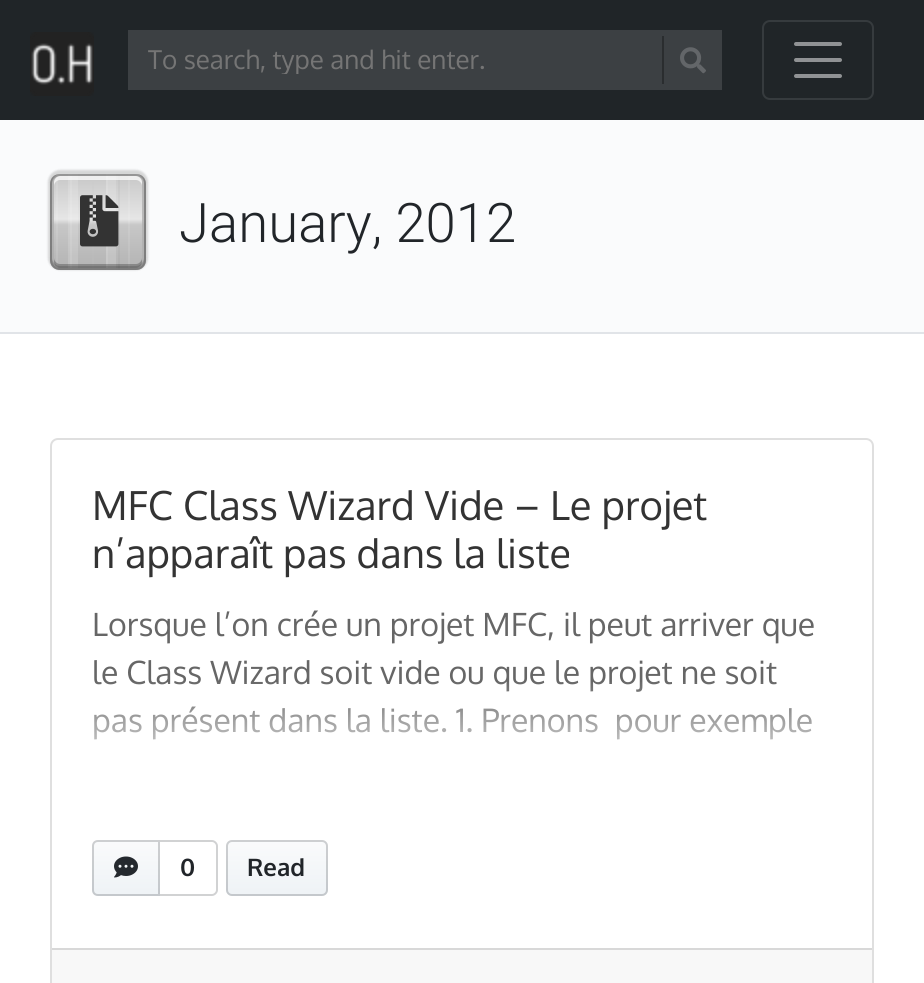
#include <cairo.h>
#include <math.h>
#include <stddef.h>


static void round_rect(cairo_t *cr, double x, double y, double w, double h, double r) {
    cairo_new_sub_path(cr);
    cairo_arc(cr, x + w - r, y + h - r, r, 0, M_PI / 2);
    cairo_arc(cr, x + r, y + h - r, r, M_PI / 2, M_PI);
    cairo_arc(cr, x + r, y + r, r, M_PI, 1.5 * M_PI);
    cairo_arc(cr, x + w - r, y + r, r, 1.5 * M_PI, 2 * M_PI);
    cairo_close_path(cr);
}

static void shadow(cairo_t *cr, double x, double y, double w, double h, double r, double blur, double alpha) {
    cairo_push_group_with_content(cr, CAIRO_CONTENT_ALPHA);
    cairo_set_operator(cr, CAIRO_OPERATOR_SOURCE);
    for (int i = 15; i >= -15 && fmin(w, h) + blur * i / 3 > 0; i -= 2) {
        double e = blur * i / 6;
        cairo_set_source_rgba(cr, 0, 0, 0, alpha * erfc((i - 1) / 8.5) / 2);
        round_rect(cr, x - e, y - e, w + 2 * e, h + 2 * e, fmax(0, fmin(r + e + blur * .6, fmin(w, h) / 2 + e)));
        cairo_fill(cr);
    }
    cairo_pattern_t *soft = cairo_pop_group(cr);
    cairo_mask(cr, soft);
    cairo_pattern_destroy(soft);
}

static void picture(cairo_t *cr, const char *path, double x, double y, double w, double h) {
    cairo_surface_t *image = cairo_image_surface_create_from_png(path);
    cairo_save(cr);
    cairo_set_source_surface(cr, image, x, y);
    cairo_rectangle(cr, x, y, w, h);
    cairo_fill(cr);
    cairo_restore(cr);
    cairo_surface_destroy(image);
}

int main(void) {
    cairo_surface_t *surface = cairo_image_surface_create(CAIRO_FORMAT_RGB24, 924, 983);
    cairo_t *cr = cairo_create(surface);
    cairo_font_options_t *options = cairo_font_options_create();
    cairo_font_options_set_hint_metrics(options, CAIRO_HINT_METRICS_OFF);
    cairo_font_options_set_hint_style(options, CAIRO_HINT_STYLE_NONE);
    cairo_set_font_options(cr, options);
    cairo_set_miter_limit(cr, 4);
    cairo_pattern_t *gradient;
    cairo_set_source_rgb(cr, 1, 1, 1);
    cairo_paint(cr);
    cairo_set_source_rgb(cr, 0.125, 0.145, 0.157);
    cairo_rectangle(cr, 0, 0, 924, 120);
    cairo_fill(cr);
    picture(cr, "img1.png", 30, 32, 64, 64);
    cairo_set_source_rgb(cr, 0.235, 0.251, 0.263);
    cairo_rectangle(cr, 128, 30, 594, 60);
    cairo_fill(cr);
    cairo_save(cr);
    cairo_rectangle(cr, 148, 42, 494, 32);
    cairo_clip(cr);
    cairo_select_font_face(cr, "Oxygen", CAIRO_FONT_SLANT_NORMAL, CAIRO_FONT_WEIGHT_NORMAL);
    cairo_set_font_size(cr, 26);
    cairo_set_source_rgb(cr, 0.459, 0.459, 0.459);
    cairo_move_to(cr, 148, 69);
    cairo_show_text(cr, "To search, type and hit enter.");
    cairo_restore(cr);
    cairo_set_source_rgb(cr, 0.165, 0.176, 0.184);
    cairo_rectangle(cr, 662, 36, 2, 48);
    cairo_fill(cr);
    picture(cr, "img2.png", 680, 47, 26, 27);
    round_rect(cr, 763, 21, 110, 78, 7);
    cairo_set_source_rgb(cr, 0.212, 0.231, 0.243);
    cairo_stroke(cr);
    cairo_new_path(cr);
    cairo_move_to(cr, 796, 44);
    cairo_line_to(cr, 840, 44);
    cairo_move_to(cr, 796, 60);
    cairo_line_to(cr, 840, 60);
    cairo_move_to(cr, 796, 76);
    cairo_line_to(cr, 840, 76);
    cairo_set_source_rgb(cr, 0.565, 0.573, 0.58);
    cairo_set_line_width(cr, 4);
    cairo_set_line_cap(cr, CAIRO_LINE_CAP_ROUND);
    cairo_stroke(cr);
    cairo_set_source_rgb(cr, 0.98, 0.984, 0.988);
    cairo_rectangle(cr, 0, 120, 924, 212);
    cairo_fill(cr);
    cairo_set_source_rgb(cr, 0.882, 0.894, 0.91);
    cairo_rectangle(cr, 0, 332, 924, 2);
    cairo_fill(cr);
    cairo_set_source_rgb(cr, 0, 0, 0);
    shadow(cr, 48, 170, 100, 100, 12, 1, 0.15);
    gradient = cairo_pattern_create_linear(98, 174, 98, 270);
    cairo_pattern_add_color_stop_rgba(gradient, 0, 0.78, 0.78, 0.78, 1);
    cairo_pattern_add_color_stop_rgba(gradient, 0.47, 0.902, 0.902, 0.902, 1);
    cairo_pattern_add_color_stop_rgba(gradient, 0.53, 0.78, 0.78, 0.78, 1);
    cairo_pattern_add_color_stop_rgba(gradient, 1, 0.702, 0.702, 0.702, 1);
    cairo_set_source(cr, gradient);
    cairo_pattern_destroy(gradient);
    round_rect(cr, 50, 174, 96, 96, 10);
    cairo_fill(cr);
    picture(cr, "img3.png", 68, 174, 78, 96);
    picture(cr, "img4.png", 92, 174, 54, 96);
    cairo_set_source_rgba(cr, 1, 1, 1, 0.1);
    round_rect(cr, 56, 174, 2, 96, 1);
    cairo_fill(cr);
    cairo_rectangle(cr, 70, 174, 2, 96);
    cairo_fill(cr);
    cairo_rectangle(cr, 92, 174, 2, 96);
    cairo_fill(cr);
    cairo_rectangle(cr, 106, 174, 2, 96);
    cairo_fill(cr);
    cairo_rectangle(cr, 128, 174, 2, 96);
    cairo_fill(cr);
    cairo_save(cr);
    round_rect(cr, 50, 174, 96, 96, 10);
    cairo_clip(cr);
    round_rect(cr, 142, 174, 2, 96, 1);
    cairo_fill(cr);
    cairo_restore(cr);
    cairo_set_source_rgba(cr, 1, 1, 1, 0.7);
    cairo_set_fill_rule(cr, CAIRO_FILL_RULE_EVEN_ODD);
    cairo_new_path(cr);
    cairo_move_to(cr, 60, 174);
    cairo_curve_to(cr, 54, 174, 50, 178, 50, 184);
    cairo_line_to(cr, 50, 260);
    cairo_curve_to(cr, 50, 266, 54, 270, 60, 270);
    cairo_line_to(cr, 136, 270);
    cairo_curve_to(cr, 142, 270, 146, 266, 146, 260);
    cairo_line_to(cr, 146, 184);
    cairo_curve_to(cr, 146, 178, 142, 174, 136, 174);
    cairo_close_path(cr);
    cairo_move_to(cr, 60, 180);
    cairo_curve_to(cr, 57, 180, 54, 183, 54, 186);
    cairo_line_to(cr, 54, 262);
    cairo_curve_to(cr, 54, 265, 57, 268, 60, 268);
    cairo_line_to(cr, 136, 268);
    cairo_curve_to(cr, 139, 268, 142, 265, 142, 262);
    cairo_line_to(cr, 142, 186);
    cairo_curve_to(cr, 142, 183, 139, 180, 136, 180);
    cairo_close_path(cr);
    cairo_fill(cr);
    cairo_set_source_rgba(cr, 0, 0, 0, 0.25);
    cairo_new_path(cr);
    cairo_move_to(cr, 60, 174);
    cairo_curve_to(cr, 54, 174, 50, 178, 50, 184);
    cairo_line_to(cr, 50, 260);
    cairo_curve_to(cr, 50, 266, 54, 270, 60, 270);
    cairo_line_to(cr, 136, 270);
    cairo_curve_to(cr, 142, 270, 146, 266, 146, 260);
    cairo_line_to(cr, 146, 184);
    cairo_curve_to(cr, 146, 178, 142, 174, 136, 174);
    cairo_close_path(cr);
    cairo_move_to(cr, 60, 176);
    cairo_curve_to(cr, 57, 176, 54, 179, 54, 182);
    cairo_line_to(cr, 54, 258);
    cairo_curve_to(cr, 54, 261, 57, 264, 60, 264);
    cairo_line_to(cr, 136, 264);
    cairo_curve_to(cr, 139, 264, 142, 261, 142, 258);
    cairo_line_to(cr, 142, 182);
    cairo_curve_to(cr, 142, 179, 139, 176, 136, 176);
    cairo_close_path(cr);
    cairo_fill(cr);
    cairo_set_source_rgba(cr, 0.149, 0.149, 0.149, 0.2);
    cairo_set_fill_rule(cr, CAIRO_FILL_RULE_WINDING);
    cairo_new_path(cr);
    cairo_move_to(cr, 60, 174);
    cairo_curve_to(cr, 54, 174, 50, 178, 50, 184);
    cairo_line_to(cr, 50, 260);
    cairo_curve_to(cr, 50, 266, 54, 270, 60, 270);
    cairo_line_to(cr, 136, 270);
    cairo_curve_to(cr, 142, 270, 146, 266, 146, 260);
    cairo_line_to(cr, 146, 184);
    cairo_curve_to(cr, 146, 178, 142, 174, 136, 174);
    cairo_curve_to(cr, 140, 174, 144, 178, 144, 182);
    cairo_line_to(cr, 144, 258);
    cairo_curve_to(cr, 144, 262, 140, 266, 136, 266);
    cairo_line_to(cr, 60, 266);
    cairo_curve_to(cr, 56, 266, 52, 262, 52, 258);
    cairo_line_to(cr, 52, 182);
    cairo_curve_to(cr, 52, 178, 56, 174, 60, 174);
    cairo_close_path(cr);
    cairo_fill(cr);
    round_rect(cr, 51, 175, 94, 94, 9);
    cairo_set_line_width(cr, 2);
    cairo_set_line_cap(cr, CAIRO_LINE_CAP_BUTT);
    cairo_stroke(cr);
    picture(cr, "img5.png", 80, 195, 39, 52);
    cairo_select_font_face(cr, "Roboto Light", CAIRO_FONT_SLANT_NORMAL, CAIRO_FONT_WEIGHT_NORMAL);
    cairo_set_font_size(cr, 54.5);
    cairo_set_source_rgb(cr, 0.129, 0.145, 0.161);
    cairo_move_to(cr, 179, 242);
    cairo_show_text(cr, "January, 2012");
    round_rect(cr, 51, 439, 822, 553, 7);
    cairo_set_source_rgb(cr, 0.875, 0.875, 0.875);
    cairo_stroke(cr);
    cairo_select_font_face(cr, "Oxygen", CAIRO_FONT_SLANT_NORMAL, CAIRO_FONT_WEIGHT_NORMAL);
    cairo_set_font_size(cr, 40);
    cairo_set_source_rgb(cr, 0.2, 0.2, 0.2);
    cairo_move_to(cr, 92, 520);
    cairo_show_text(cr, "MFC Class Wizard Vide – Le projet");
    cairo_move_to(cr, 92, 568);
    cairo_show_text(cr, "n’apparaît pas dans la liste");
    cairo_set_font_size(cr, 32);
    cairo_set_source_rgb(cr, 0.4, 0.4, 0.4);
    cairo_move_to(cr, 92, 636);
    cairo_show_text(cr, "Lorsque l’on crée un projet MFC, il peut arriver que");
    cairo_move_to(cr, 92, 684);
    cairo_show_text(cr, "le Class Wizard soit vide ou que le projet ne soit");
    cairo_move_to(cr, 92, 732);
    cairo_show_text(cr, "pas présent dans la liste. 1. Prenons  pour exemple");
    gradient = cairo_pattern_create_linear(462, 680, 462, 840);
    cairo_pattern_add_color_stop_rgba(gradient, 0, 1, 1, 1, 0);
    cairo_pattern_add_color_stop_rgba(gradient, 0.33, 1, 1, 1, 0.5);
    cairo_pattern_add_color_stop_rgba(gradient, 0.67, 1, 1, 1, 0.9);
    cairo_pattern_add_color_stop_rgba(gradient, 1, 1, 1, 1, 1);
    cairo_set_source(cr, gradient);
    cairo_pattern_destroy(gradient);
    cairo_rectangle(cr, 94, 682, 718, 58);
    cairo_fill(cr);
    gradient = cairo_pattern_create_linear(127, 840, 127, 897);
    cairo_pattern_add_color_stop_rgba(gradient, 0, 0.98, 0.984, 0.988, 1);
    cairo_pattern_add_color_stop_rgba(gradient, 0.9, 0.937, 0.953, 0.965, 1);
    cairo_set_source(cr, gradient);
    cairo_pattern_destroy(gradient);
    cairo_new_path(cr);
    cairo_move_to(cr, 98, 840);
    cairo_line_to(cr, 160, 840);
    cairo_line_to(cr, 160, 896);
    cairo_line_to(cr, 98, 896);
    cairo_curve_to(cr, 94.5, 896, 92, 893.5, 92, 890);
    cairo_line_to(cr, 92, 846);
    cairo_curve_to(cr, 92, 842.5, 94.5, 840, 98, 840);
    cairo_close_path(cr);
    cairo_fill(cr);
    cairo_new_path(cr);
    cairo_move_to(cr, 98, 841);
    cairo_line_to(cr, 159, 841);
    cairo_line_to(cr, 159, 895);
    cairo_line_to(cr, 98, 895);
    cairo_curve_to(cr, 95, 895, 93, 893, 93, 890);
    cairo_line_to(cr, 93, 846);
    cairo_curve_to(cr, 93, 843, 95, 841, 98, 841);
    cairo_close_path(cr);
    cairo_set_source_rgba(cr, 0.106, 0.122, 0.137, 0.2);
    cairo_stroke(cr);
    picture(cr, "img6.png", 114, 856, 24, 22);
    cairo_set_source_rgb(cr, 0.82, 0.824, 0.827);
    cairo_set_fill_rule(cr, CAIRO_FILL_RULE_EVEN_ODD);
    cairo_new_path(cr);
    cairo_move_to(cr, 160, 840);
    cairo_line_to(cr, 212, 840);
    cairo_curve_to(cr, 215, 840, 218, 843, 218, 846);
    cairo_line_to(cr, 218, 890);
    cairo_curve_to(cr, 218, 893, 215, 896, 212, 896);
    cairo_line_to(cr, 160, 896);
    cairo_close_path(cr);
    cairo_move_to(cr, 160, 842);
    cairo_line_to(cr, 212, 842);
    cairo_curve_to(cr, 214, 842, 216, 844, 216, 846);
    cairo_line_to(cr, 216, 890);
    cairo_curve_to(cr, 216, 892, 214, 894, 212, 894);
    cairo_line_to(cr, 160, 894);
    cairo_close_path(cr);
    cairo_fill(cr);
    cairo_select_font_face(cr, "Oxygen", CAIRO_FONT_SLANT_NORMAL, CAIRO_FONT_WEIGHT_BOLD);
    cairo_set_font_size(cr, 24);
    cairo_set_source_rgb(cr, 0.129, 0.145, 0.161);
    cairo_move_to(cr, 180, 876);
    cairo_show_text(cr, "0");
    gradient = cairo_pattern_create_linear(280, 840, 280, 897);
    cairo_pattern_add_color_stop_rgba(gradient, 0, 0.98, 0.984, 0.988, 1);
    cairo_pattern_add_color_stop_rgba(gradient, 0.9, 0.937, 0.953, 0.965, 1);
    cairo_set_source(cr, gradient);
    cairo_pattern_destroy(gradient);
    round_rect(cr, 226, 840, 102, 56, 6);
    cairo_fill(cr);
    round_rect(cr, 227, 841, 100, 54, 5);
    cairo_set_source_rgba(cr, 0.106, 0.122, 0.137, 0.2);
    cairo_stroke(cr);
    cairo_set_source_rgb(cr, 0.129, 0.145, 0.161);
    cairo_move_to(cr, 247, 876);
    cairo_show_text(cr, "Read");
    cairo_set_source_rgb(cr, 0.969, 0.969, 0.969);
    cairo_rectangle(cr, 52, 950, 820, 33);
    cairo_fill(cr);
    cairo_set_source_rgb(cr, 0.847, 0.847, 0.847);
    cairo_rectangle(cr, 52, 948, 820, 2);
    cairo_fill(cr);
    cairo_surface_write_to_png(surface, "page.png");
    cairo_font_options_destroy(options);
    cairo_destroy(cr);
    cairo_surface_destroy(surface);
    return 0;
}
